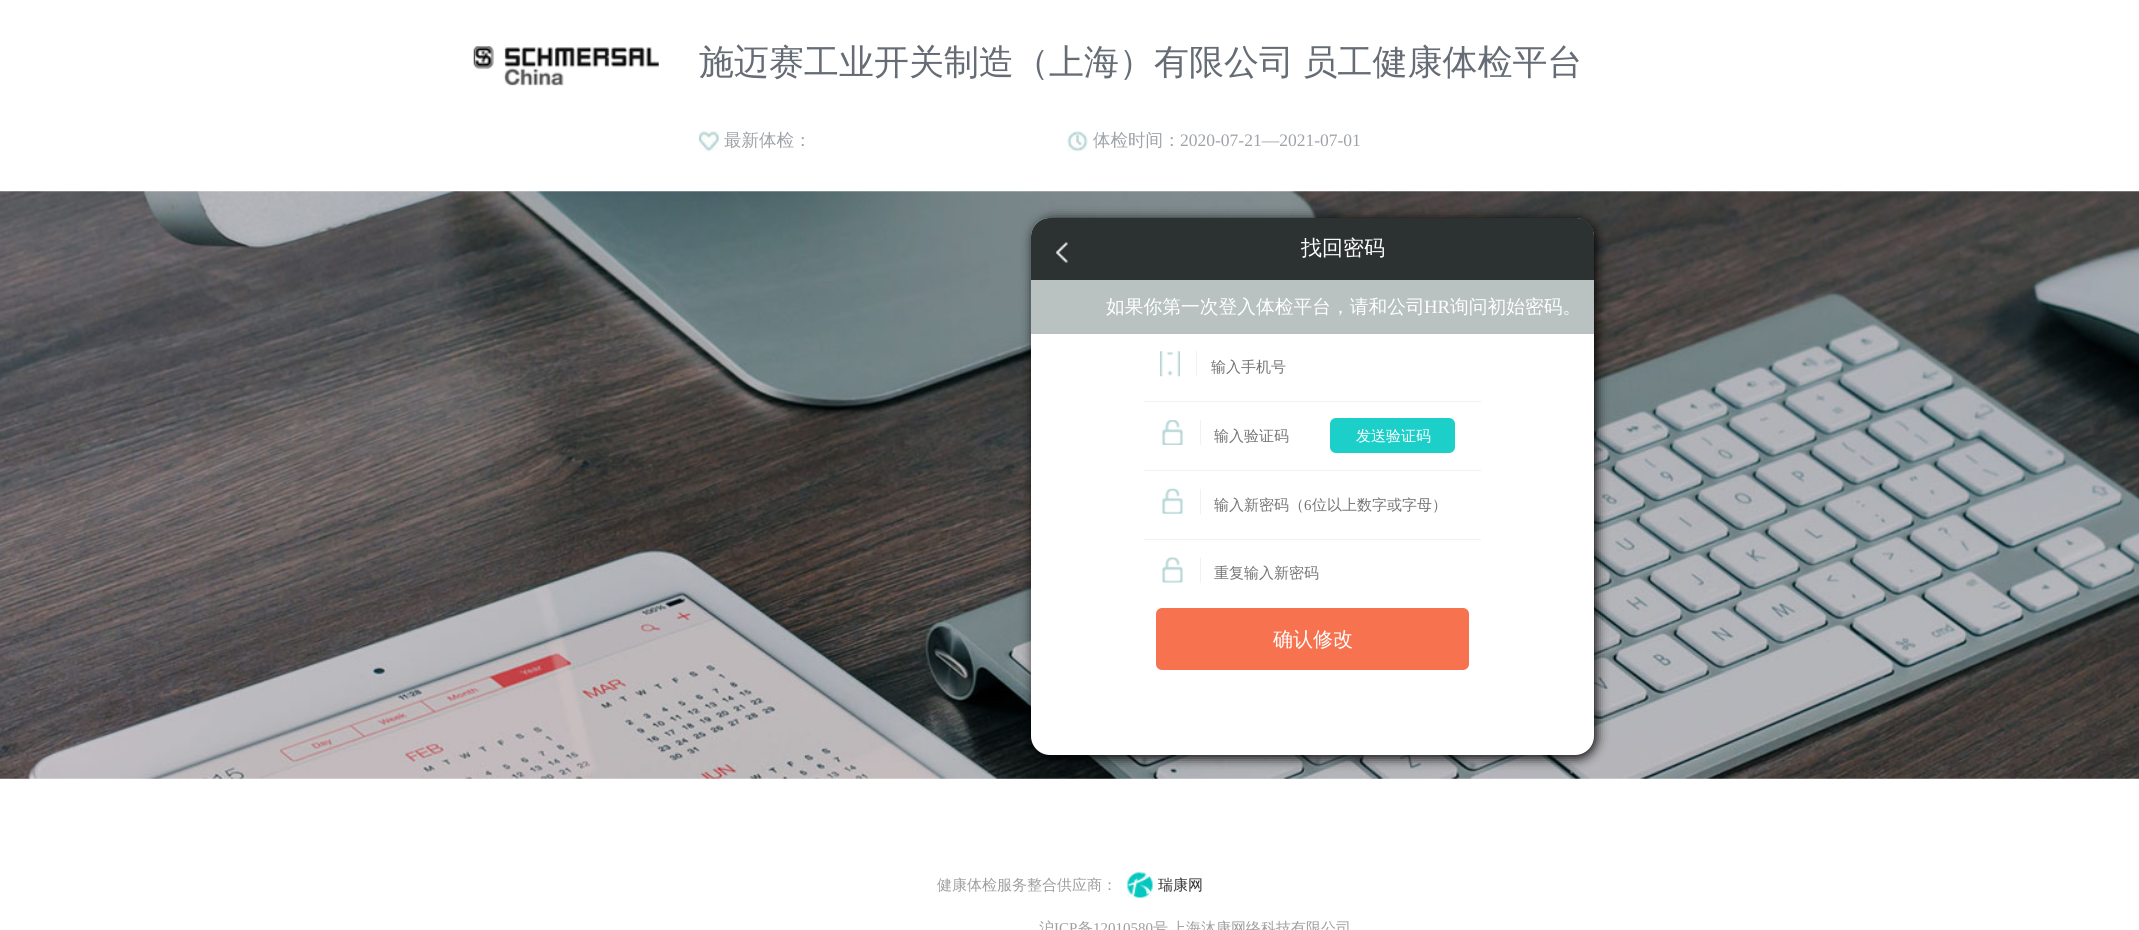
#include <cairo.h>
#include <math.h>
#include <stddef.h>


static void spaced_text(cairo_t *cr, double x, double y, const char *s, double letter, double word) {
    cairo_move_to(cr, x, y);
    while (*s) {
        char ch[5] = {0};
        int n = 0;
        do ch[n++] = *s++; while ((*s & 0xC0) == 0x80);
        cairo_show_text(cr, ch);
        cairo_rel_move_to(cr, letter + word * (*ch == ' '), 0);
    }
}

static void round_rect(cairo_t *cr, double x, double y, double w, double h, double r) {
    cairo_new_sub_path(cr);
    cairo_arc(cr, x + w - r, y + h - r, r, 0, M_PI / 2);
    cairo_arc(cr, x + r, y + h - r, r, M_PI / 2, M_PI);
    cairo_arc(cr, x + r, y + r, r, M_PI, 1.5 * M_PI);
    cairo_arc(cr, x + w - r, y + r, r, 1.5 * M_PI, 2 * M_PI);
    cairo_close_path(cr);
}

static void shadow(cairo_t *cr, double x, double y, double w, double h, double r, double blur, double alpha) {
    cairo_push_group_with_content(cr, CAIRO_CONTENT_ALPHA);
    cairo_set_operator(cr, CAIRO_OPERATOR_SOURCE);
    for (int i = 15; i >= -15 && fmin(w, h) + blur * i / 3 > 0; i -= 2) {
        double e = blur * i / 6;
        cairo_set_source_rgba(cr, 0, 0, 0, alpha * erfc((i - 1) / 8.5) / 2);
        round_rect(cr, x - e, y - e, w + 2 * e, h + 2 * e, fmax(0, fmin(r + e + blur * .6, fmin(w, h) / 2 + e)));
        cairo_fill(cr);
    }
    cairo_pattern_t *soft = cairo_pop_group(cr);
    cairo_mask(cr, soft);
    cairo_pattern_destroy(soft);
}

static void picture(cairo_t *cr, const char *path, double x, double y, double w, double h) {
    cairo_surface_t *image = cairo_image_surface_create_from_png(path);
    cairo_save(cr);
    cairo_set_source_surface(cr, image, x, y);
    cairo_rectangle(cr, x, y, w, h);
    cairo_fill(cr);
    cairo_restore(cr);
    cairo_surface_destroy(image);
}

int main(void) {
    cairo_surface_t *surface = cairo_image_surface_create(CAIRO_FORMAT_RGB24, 2139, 930);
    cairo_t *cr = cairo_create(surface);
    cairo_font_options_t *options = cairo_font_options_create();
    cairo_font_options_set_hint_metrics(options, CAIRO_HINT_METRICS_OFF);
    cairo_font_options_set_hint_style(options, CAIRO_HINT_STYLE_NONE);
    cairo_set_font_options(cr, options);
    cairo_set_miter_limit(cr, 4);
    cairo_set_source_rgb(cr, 1, 1, 1);
    cairo_paint(cr);
    picture(cr, "img1.png", 473, 46, 186, 40);
    cairo_select_font_face(cr, "WenQuanYi Zen Hei Medium", CAIRO_FONT_SLANT_NORMAL, CAIRO_FONT_WEIGHT_NORMAL);
    cairo_set_font_size(cr, 35);
    cairo_set_source_rgb(cr, 0.396, 0.424, 0.459);
    spaced_text(cr, 699, 74, "施迈赛工业开关制造（上海）有限公司 员工健康体检平台", 0, -2);
    picture(cr, "img2.png", 698, 131, 21, 21);
    cairo_set_font_size(cr, 17.5);
    cairo_set_source_rgb(cr, 0.624, 0.639, 0.659);
    cairo_move_to(cr, 724, 146);
    cairo_show_text(cr, "最新体检：");
    picture(cr, "img3.png", 1067, 131, 21, 21);
    cairo_move_to(cr, 1093, 146);
    cairo_show_text(cr, "体检时间：");
    cairo_select_font_face(cr, "Liberation Serif", CAIRO_FONT_SLANT_NORMAL, CAIRO_FONT_WEIGHT_NORMAL);
    cairo_move_to(cr, 1180, 146);
    cairo_show_text(cr, "2020-07-21—2021-07-01");
    picture(cr, "img4.png", 0, 191, 2139, 588);
    cairo_set_source_rgb(cr, 0, 0, 0);
    shadow(cr, 1034, 220, 562, 538, 19, 6, 1);
    cairo_set_source_rgb(cr, 1, 1, 1);
    round_rect(cr, 1031, 218, 563, 537, 19);
    cairo_fill(cr);
    cairo_set_source_rgb(cr, 0.173, 0.192, 0.196);
    cairo_new_path(cr);
    cairo_move_to(cr, 1050, 218);
    cairo_line_to(cr, 1576, 218);
    cairo_curve_to(cr, 1586, 218, 1594, 226, 1594, 236);
    cairo_line_to(cr, 1594, 280);
    cairo_line_to(cr, 1031, 280);
    cairo_line_to(cr, 1031, 237);
    cairo_curve_to(cr, 1031, 226.5, 1039.5, 218, 1050, 218);
    cairo_close_path(cr);
    cairo_fill(cr);
    picture(cr, "img5.png", 1056, 242, 12, 21);
    cairo_select_font_face(cr, "WenQuanYi Zen Hei Medium", CAIRO_FONT_SLANT_NORMAL, CAIRO_FONT_WEIGHT_NORMAL);
    cairo_set_font_size(cr, 21);
    cairo_set_source_rgb(cr, 1, 1, 1);
    cairo_move_to(cr, 1301, 255);
    cairo_show_text(cr, "找回密码");
    cairo_set_source_rgb(cr, 0.725, 0.761, 0.757);
    cairo_rectangle(cr, 1031, 280, 563, 54);
    cairo_fill(cr);
    cairo_set_font_size(cr, 18.75);
    cairo_set_source_rgb(cr, 1, 1, 1);
    cairo_move_to(cr, 1106, 313);
    cairo_show_text(cr, "如果你第一次登入体检平台，请和公司");
    cairo_select_font_face(cr, "Liberation Serif", CAIRO_FONT_SLANT_NORMAL, CAIRO_FONT_WEIGHT_NORMAL);
    cairo_move_to(cr, 1424, 313);
    cairo_show_text(cr, "HR");
    cairo_select_font_face(cr, "WenQuanYi Zen Hei Medium", CAIRO_FONT_SLANT_NORMAL, CAIRO_FONT_WEIGHT_NORMAL);
    cairo_move_to(cr, 1450, 313);
    cairo_show_text(cr, "询问初始密码。");
    cairo_set_source_rgb(cr, 0.922, 0.953, 0.953);
    cairo_rectangle(cr, 1144, 401, 337, 1);
    cairo_fill(cr);
    picture(cr, "img6.png", 1160, 351, 20, 26);
    cairo_rectangle(cr, 1196, 351, 1, 25);
    cairo_fill(cr);
    cairo_set_font_size(cr, 15);
    cairo_set_source_rgb(cr, 0.459, 0.459, 0.459);
    cairo_move_to(cr, 1211, 372);
    cairo_show_text(cr, "输入手机号");
    cairo_set_source_rgb(cr, 0.922, 0.953, 0.953);
    cairo_rectangle(cr, 1144, 470, 337, 1);
    cairo_fill(cr);
    picture(cr, "img7.png", 1162, 420, 21, 25);
    cairo_rectangle(cr, 1200, 420, 1, 25);
    cairo_fill(cr);
    cairo_set_source_rgb(cr, 0.459, 0.459, 0.459);
    cairo_move_to(cr, 1214, 441);
    cairo_show_text(cr, "输入验证码");
    cairo_set_source_rgb(cr, 0.11, 0.816, 0.788);
    round_rect(cr, 1330, 418, 125, 35, 6);
    cairo_fill(cr);
    cairo_set_source_rgb(cr, 1, 1, 1);
    cairo_move_to(cr, 1356, 441);
    cairo_show_text(cr, "发送验证码");
    cairo_set_source_rgb(cr, 0.922, 0.953, 0.953);
    cairo_rectangle(cr, 1144, 539, 337, 1);
    cairo_fill(cr);
    picture(cr, "img8.png", 1162, 488, 21, 26);
    cairo_rectangle(cr, 1200, 489, 1, 25);
    cairo_fill(cr);
    cairo_set_source_rgb(cr, 0.459, 0.459, 0.459);
    cairo_move_to(cr, 1214, 510);
    cairo_show_text(cr, "输入新密码（");
    cairo_select_font_face(cr, "Liberation Serif", CAIRO_FONT_SLANT_NORMAL, CAIRO_FONT_WEIGHT_NORMAL);
    cairo_move_to(cr, 1304, 510);
    cairo_show_text(cr, "6");
    cairo_select_font_face(cr, "WenQuanYi Zen Hei Medium", CAIRO_FONT_SLANT_NORMAL, CAIRO_FONT_WEIGHT_NORMAL);
    cairo_move_to(cr, 1312, 510);
    cairo_show_text(cr, "位以上数字或字母）");
    picture(cr, "img9.png", 1162, 557, 21, 26);
    cairo_set_source_rgb(cr, 0.922, 0.953, 0.953);
    cairo_rectangle(cr, 1200, 558, 1, 25);
    cairo_fill(cr);
    cairo_set_source_rgb(cr, 0.459, 0.459, 0.459);
    cairo_move_to(cr, 1214, 578);
    cairo_show_text(cr, "重复输入新密码");
    cairo_set_source_rgb(cr, 0.965, 0.447, 0.31);
    round_rect(cr, 1156, 608, 313, 62, 6);
    cairo_fill(cr);
    cairo_set_font_size(cr, 20);
    cairo_set_source_rgb(cr, 1, 1, 1);
    cairo_move_to(cr, 1273, 646);
    cairo_show_text(cr, "确认修改");
    cairo_set_font_size(cr, 15);
    cairo_set_source_rgb(cr, 0.62, 0.62, 0.62);
    cairo_move_to(cr, 937, 890);
    cairo_show_text(cr, "健康体检服务整合供应商：");
    picture(cr, "img10.png", 1127, 872, 26, 26);
    cairo_set_source_rgb(cr, 0.2, 0.2, 0.2);
    cairo_move_to(cr, 1158, 890);
    cairo_show_text(cr, "瑞康网");
    cairo_set_source_rgb(cr, 0.62, 0.62, 0.62);
    cairo_move_to(cr, 1039, 933);
    cairo_show_text(cr, "沪");
    cairo_select_font_face(cr, "Liberation Serif", CAIRO_FONT_SLANT_NORMAL, CAIRO_FONT_WEIGHT_NORMAL);
    cairo_move_to(cr, 1054, 933);
    cairo_show_text(cr, "ICP");
    cairo_select_font_face(cr, "WenQuanYi Zen Hei Medium", CAIRO_FONT_SLANT_NORMAL, CAIRO_FONT_WEIGHT_NORMAL);
    cairo_move_to(cr, 1078, 933);
    cairo_show_text(cr, "备");
    cairo_select_font_face(cr, "Liberation Serif", CAIRO_FONT_SLANT_NORMAL, CAIRO_FONT_WEIGHT_NORMAL);
    cairo_move_to(cr, 1093, 933);
    cairo_show_text(cr, "12010580");
    cairo_select_font_face(cr, "WenQuanYi Zen Hei Medium", CAIRO_FONT_SLANT_NORMAL, CAIRO_FONT_WEIGHT_NORMAL);
    cairo_move_to(cr, 1153, 933);
    cairo_show_text(cr, "号");
    cairo_move_to(cr, 1171, 933);
    cairo_show_text(cr, "上海沐康网络科技有限公司");
    cairo_surface_write_to_png(surface, "page.png");
    cairo_font_options_destroy(options);
    cairo_destroy(cr);
    cairo_surface_destroy(surface);
    return 0;
}
